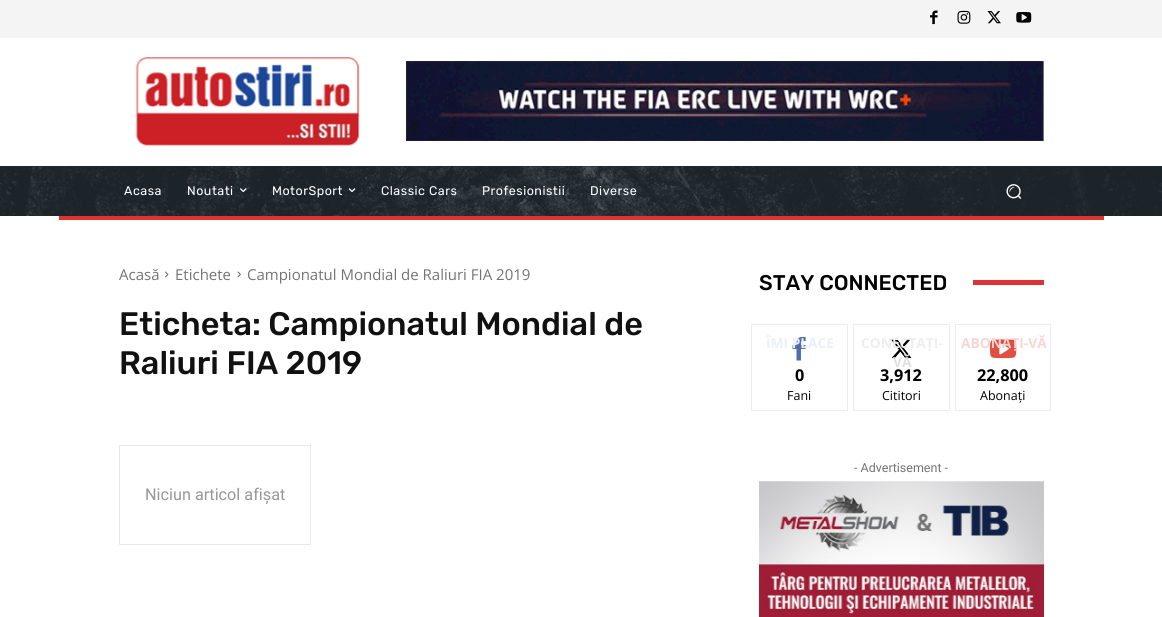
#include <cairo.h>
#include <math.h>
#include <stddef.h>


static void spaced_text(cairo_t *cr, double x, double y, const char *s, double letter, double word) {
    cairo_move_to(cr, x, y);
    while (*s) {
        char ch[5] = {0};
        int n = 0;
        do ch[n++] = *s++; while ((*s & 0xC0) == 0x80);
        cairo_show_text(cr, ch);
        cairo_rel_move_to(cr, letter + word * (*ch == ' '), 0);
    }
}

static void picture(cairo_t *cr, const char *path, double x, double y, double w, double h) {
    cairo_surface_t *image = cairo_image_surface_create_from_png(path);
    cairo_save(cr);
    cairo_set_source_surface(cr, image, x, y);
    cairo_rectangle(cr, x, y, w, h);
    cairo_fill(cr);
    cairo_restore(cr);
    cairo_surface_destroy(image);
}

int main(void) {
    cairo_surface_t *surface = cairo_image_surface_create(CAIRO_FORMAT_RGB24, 1162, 617);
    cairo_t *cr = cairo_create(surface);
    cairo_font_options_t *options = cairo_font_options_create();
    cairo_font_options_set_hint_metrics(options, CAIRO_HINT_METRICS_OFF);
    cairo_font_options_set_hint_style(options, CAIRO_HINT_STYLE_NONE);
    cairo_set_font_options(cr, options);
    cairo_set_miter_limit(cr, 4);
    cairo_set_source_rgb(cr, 1, 1, 1);
    cairo_paint(cr);
    cairo_set_source_rgb(cr, 0.957, 0.957, 0.957);
    cairo_rectangle(cr, 0, 0, 1162, 38);
    cairo_fill(cr);
    picture(cr, "img1.png", 930, 10, 8, 15);
    picture(cr, "img2.png", 957, 10, 14, 14);
    picture(cr, "img3.png", 987, 11, 14, 13);
    picture(cr, "img4.png", 1016, 12, 16, 11);
    picture(cr, "img5.png", 135, 57, 225, 89);
    picture(cr, "img6.png", 406, 61, 638, 80);
    cairo_set_source_rgb(cr, 0.137, 0.176, 0.208);
    cairo_rectangle(cr, 0, 166, 1162, 50);
    cairo_fill(cr);
    picture(cr, "img7.png", 0, 166, 1162, 50);
    cairo_select_font_face(cr, "Rubik", CAIRO_FONT_SLANT_NORMAL, CAIRO_FONT_WEIGHT_NORMAL);
    cairo_set_font_size(cr, 12.5);
    cairo_set_source_rgb(cr, 1, 1, 1);
    spaced_text(cr, 124, 195, "Acasa", 0.5, 0);
    spaced_text(cr, 187, 195, "Noutati", 0.5, 0);
    picture(cr, "img8.png", 240, 188, 7, 4);
    spaced_text(cr, 272, 195, "MotorSport", 0.5, 0);
    picture(cr, "img9.png", 348, 188, 8, 4);
    spaced_text(cr, 381, 195, "Classic Cars", 0.5, 0);
    spaced_text(cr, 482, 195, "Profesionistii", 0.5, 0);
    spaced_text(cr, 590, 195, "Diverse", 0.5, 0);
    picture(cr, "img10.png", 1006, 184, 16, 15);
    cairo_set_source_rgb(cr, 0.867, 0.2, 0.2);
    cairo_rectangle(cr, 59, 216, 1045, 4);
    cairo_fill(cr);
    cairo_select_font_face(cr, "Open Sans", CAIRO_FONT_SLANT_NORMAL, CAIRO_FONT_WEIGHT_NORMAL);
    cairo_set_font_size(cr, 15);
    cairo_set_source_rgb(cr, 0.455, 0.455, 0.455);
    cairo_move_to(cr, 119, 280);
    cairo_show_text(cr, "Acasă");
    picture(cr, "img11.png", 165, 271, 4, 7);
    cairo_move_to(cr, 175, 280);
    cairo_show_text(cr, "Etichete");
    picture(cr, "img12.png", 237, 271, 4, 7);
    cairo_move_to(cr, 247, 280);
    cairo_show_text(cr, "Campionatul Mondial de Raliuri FIA 2019");
    cairo_select_font_face(cr, "Rubik Medium", CAIRO_FONT_SLANT_NORMAL, CAIRO_FONT_WEIGHT_NORMAL);
    cairo_set_font_size(cr, 32.5);
    cairo_set_source_rgb(cr, 0.067, 0.067, 0.067);
    cairo_move_to(cr, 119, 335);
    cairo_show_text(cr, "Eticheta: Campionatul Mondial de");
    cairo_move_to(cr, 119, 374);
    cairo_show_text(cr, "Raliuri FIA 2019");
    cairo_rectangle(cr, 119.5, 445.5, 191, 99);
    cairo_set_source_rgb(cr, 0.91, 0.91, 0.91);
    cairo_set_line_width(cr, 1);
    cairo_stroke(cr);
    cairo_select_font_face(cr, "Roboto", CAIRO_FONT_SLANT_NORMAL, CAIRO_FONT_WEIGHT_NORMAL);
    cairo_set_font_size(cr, 16.25);
    cairo_set_source_rgb(cr, 0.592, 0.592, 0.592);
    cairo_move_to(cr, 145, 500);
    cairo_show_text(cr, "Niciun articol afișat");
    cairo_select_font_face(cr, "Rubik Medium", CAIRO_FONT_SLANT_NORMAL, CAIRO_FONT_WEIGHT_NORMAL);
    cairo_set_font_size(cr, 21.25);
    cairo_set_source_rgb(cr, 0, 0, 0);
    cairo_move_to(cr, 759, 290);
    cairo_show_text(cr, "STAY CONNECTED");
    cairo_set_source_rgb(cr, 0.867, 0.2, 0.2);
    cairo_rectangle(cr, 973, 280, 71, 5);
    cairo_fill(cr);
    cairo_rectangle(cr, 751.5, 324.5, 96, 86);
    cairo_set_source_rgb(cr, 0.929, 0.929, 0.929);
    cairo_stroke(cr);
    picture(cr, "img13.png", 792, 336, 14, 25);
    cairo_select_font_face(cr, "Open Sans", CAIRO_FONT_SLANT_NORMAL, CAIRO_FONT_WEIGHT_BOLD);
    cairo_set_font_size(cr, 13.75);
    cairo_set_source_rgb(cr, 0.925, 0.937, 0.965);
    cairo_move_to(cr, 766, 348);
    cairo_show_text(cr, "ÎMI PLACE");
    cairo_set_font_size(cr, 16.25);
    cairo_set_source_rgb(cr, 0, 0, 0);
    cairo_move_to(cr, 795, 381);
    cairo_show_text(cr, "0");
    cairo_select_font_face(cr, "Open Sans", CAIRO_FONT_SLANT_NORMAL, CAIRO_FONT_WEIGHT_NORMAL);
    cairo_set_font_size(cr, 12.5);
    cairo_move_to(cr, 787, 400);
    cairo_show_text(cr, "Fani");
    cairo_rectangle(cr, 853.5, 324.5, 96, 86);
    cairo_set_source_rgb(cr, 0.929, 0.929, 0.929);
    cairo_stroke(cr);
    picture(cr, "img14.png", 891, 339, 21, 20);
    cairo_select_font_face(cr, "Open Sans", CAIRO_FONT_SLANT_NORMAL, CAIRO_FONT_WEIGHT_BOLD);
    cairo_set_font_size(cr, 13.75);
    cairo_set_source_rgb(cr, 0.933, 0.933, 0.933);
    cairo_move_to(cr, 861, 348);
    cairo_show_text(cr, "CONECTAȚI-");
    cairo_set_source_rgb(cr, 0.875, 0.875, 0.875);
    cairo_move_to(cr, 893, 367);
    cairo_show_text(cr, "VĂ");
    cairo_set_font_size(cr, 16.25);
    cairo_set_source_rgb(cr, 0, 0, 0);
    cairo_move_to(cr, 880, 381);
    cairo_show_text(cr, "3,912");
    cairo_select_font_face(cr, "Open Sans", CAIRO_FONT_SLANT_NORMAL, CAIRO_FONT_WEIGHT_NORMAL);
    cairo_set_font_size(cr, 12.5);
    cairo_move_to(cr, 882, 400);
    cairo_show_text(cr, "Cititori");
    cairo_rectangle(cr, 955.5, 324.5, 95, 86);
    cairo_set_source_rgb(cr, 0.929, 0.929, 0.929);
    cairo_stroke(cr);
    picture(cr, "img15.png", 990, 339, 27, 20);
    cairo_select_font_face(cr, "Open Sans", CAIRO_FONT_SLANT_NORMAL, CAIRO_FONT_WEIGHT_BOLD);
    cairo_set_font_size(cr, 13.75);
    cairo_set_source_rgb(cr, 0.973, 0.831, 0.82);
    cairo_move_to(cr, 961, 348);
    cairo_show_text(cr, "ABONAȚI-VĂ");
    cairo_set_font_size(cr, 16.25);
    cairo_set_source_rgb(cr, 0, 0, 0);
    cairo_move_to(cr, 977, 381);
    cairo_show_text(cr, "22,800");
    cairo_select_font_face(cr, "Open Sans", CAIRO_FONT_SLANT_NORMAL, CAIRO_FONT_WEIGHT_NORMAL);
    cairo_set_font_size(cr, 12.5);
    cairo_move_to(cr, 980, 400);
    cairo_show_text(cr, "Abonați");
    cairo_select_font_face(cr, "Roboto", CAIRO_FONT_SLANT_NORMAL, CAIRO_FONT_WEIGHT_NORMAL);
    cairo_set_source_rgb(cr, 0.455, 0.455, 0.455);
    cairo_move_to(cr, 854, 472);
    cairo_show_text(cr, "- Advertisement -");
    picture(cr, "img16.png", 759, 481, 285, 136);
    cairo_surface_write_to_png(surface, "page.png");
    cairo_font_options_destroy(options);
    cairo_destroy(cr);
    cairo_surface_destroy(surface);
    return 0;
}
